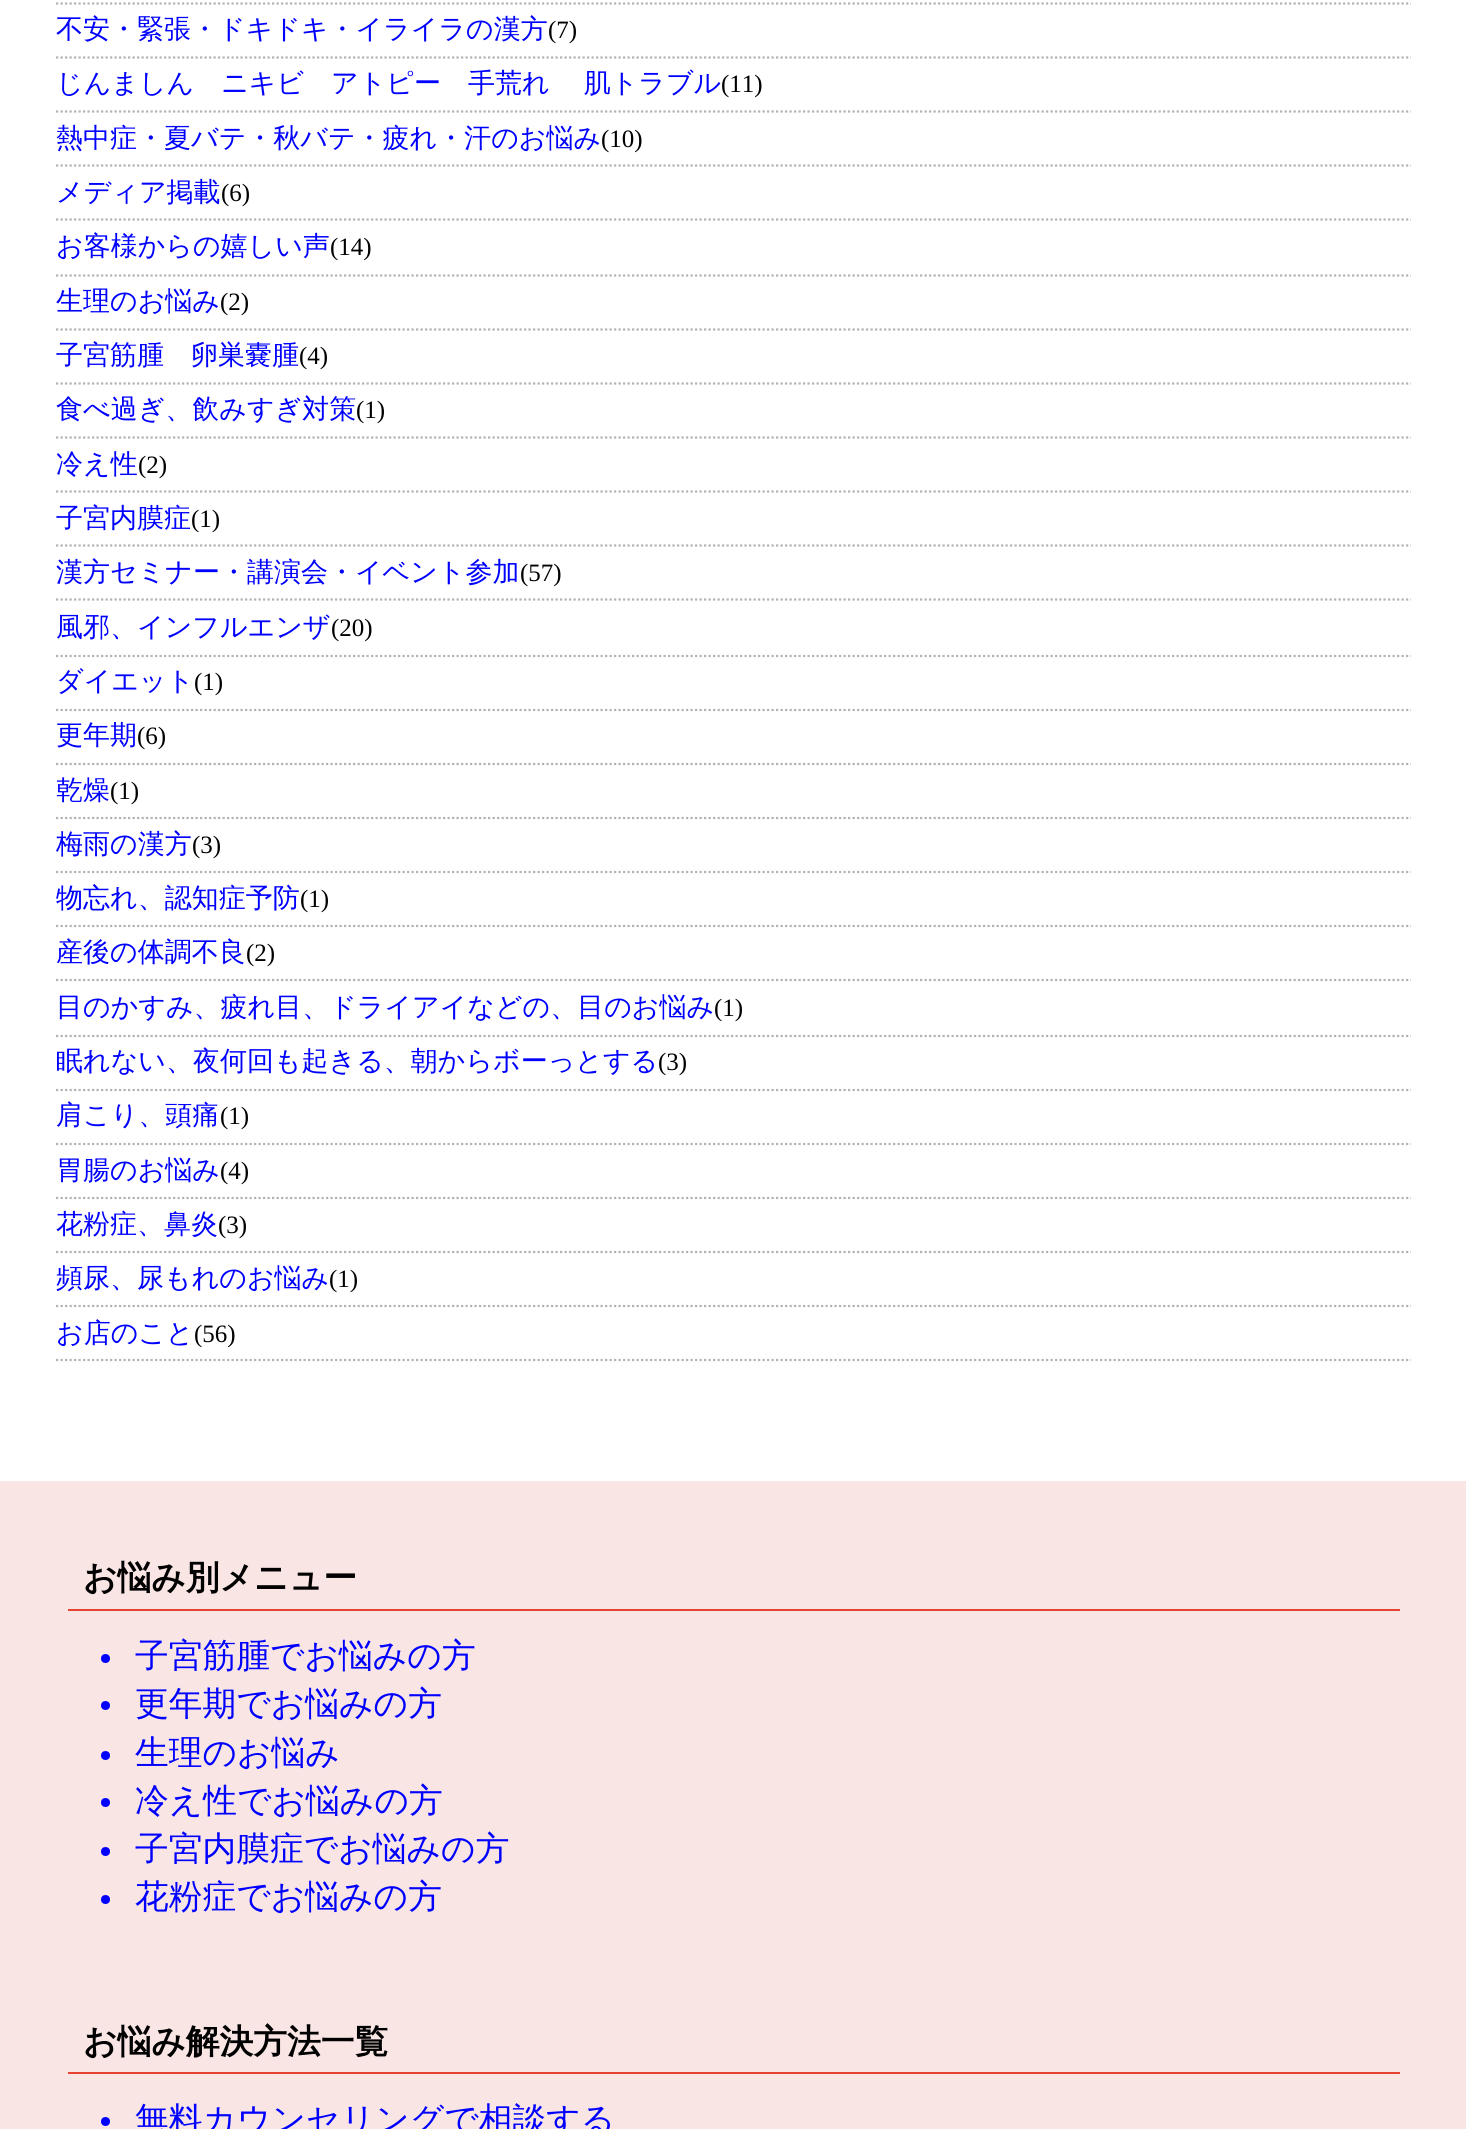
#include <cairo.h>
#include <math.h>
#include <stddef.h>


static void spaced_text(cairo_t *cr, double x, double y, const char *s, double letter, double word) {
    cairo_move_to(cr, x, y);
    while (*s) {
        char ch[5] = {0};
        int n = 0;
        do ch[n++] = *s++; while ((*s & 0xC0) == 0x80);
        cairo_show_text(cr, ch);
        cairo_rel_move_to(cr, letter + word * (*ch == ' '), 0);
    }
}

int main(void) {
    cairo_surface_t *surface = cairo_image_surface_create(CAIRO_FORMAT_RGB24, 1466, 2129);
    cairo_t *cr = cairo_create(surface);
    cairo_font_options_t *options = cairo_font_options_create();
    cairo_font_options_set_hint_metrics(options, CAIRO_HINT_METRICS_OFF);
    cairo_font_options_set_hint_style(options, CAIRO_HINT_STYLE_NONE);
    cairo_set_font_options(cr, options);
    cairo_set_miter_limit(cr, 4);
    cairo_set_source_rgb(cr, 1, 1, 1);
    cairo_paint(cr);
    cairo_new_path(cr);
    cairo_move_to(cr, 56, 3.5);
    cairo_line_to(cr, 1411, 3.5);
    cairo_set_source_rgb(cr, 0.702, 0.702, 0.702);
    cairo_set_line_width(cr, 2.2);
    cairo_set_dash(cr, (double[]){2.25, 2.25}, 2, 0);
    cairo_stroke(cr);
    cairo_new_path(cr);
    cairo_move_to(cr, 56, 57.5);
    cairo_line_to(cr, 1411, 57.5);
    cairo_stroke(cr);
    cairo_select_font_face(cr, "WenQuanYi Zen Hei Medium", CAIRO_FONT_SLANT_NORMAL, CAIRO_FONT_WEIGHT_NORMAL);
    cairo_set_font_size(cr, 27);
    cairo_set_source_rgb(cr, 0, 0, 1);
    cairo_move_to(cr, 56, 38);
    cairo_show_text(cr, "不安・緊張・ドキドキ・イライラの漢方");
    cairo_select_font_face(cr, "Liberation Serif", CAIRO_FONT_SLANT_NORMAL, CAIRO_FONT_WEIGHT_NORMAL);
    cairo_set_font_size(cr, 25);
    cairo_set_source_rgb(cr, 0, 0, 0);
    cairo_move_to(cr, 548, 38);
    cairo_show_text(cr, "(7)");
    cairo_new_path(cr);
    cairo_move_to(cr, 56, 111.5);
    cairo_line_to(cr, 1411, 111.5);
    cairo_set_source_rgb(cr, 0.702, 0.702, 0.702);
    cairo_stroke(cr);
    cairo_select_font_face(cr, "WenQuanYi Zen Hei Medium", CAIRO_FONT_SLANT_NORMAL, CAIRO_FONT_WEIGHT_NORMAL);
    cairo_set_font_size(cr, 27);
    cairo_set_source_rgb(cr, 0, 0, 1);
    spaced_text(cr, 56, 92, "じんましん　ニキビ　アトピー　手荒れ　 肌トラブル", 0, -1);
    cairo_select_font_face(cr, "Liberation Serif", CAIRO_FONT_SLANT_NORMAL, CAIRO_FONT_WEIGHT_NORMAL);
    cairo_set_font_size(cr, 25);
    cairo_set_source_rgb(cr, 0, 0, 0);
    cairo_move_to(cr, 721, 92);
    cairo_show_text(cr, "(11)");
    cairo_new_path(cr);
    cairo_move_to(cr, 56, 165.5);
    cairo_line_to(cr, 1411, 165.5);
    cairo_set_source_rgb(cr, 0.702, 0.702, 0.702);
    cairo_stroke(cr);
    cairo_select_font_face(cr, "WenQuanYi Zen Hei Medium", CAIRO_FONT_SLANT_NORMAL, CAIRO_FONT_WEIGHT_NORMAL);
    cairo_set_font_size(cr, 27);
    cairo_set_source_rgb(cr, 0, 0, 1);
    cairo_move_to(cr, 56, 147);
    cairo_show_text(cr, "熱中症・夏バテ・秋バテ・疲れ・汗のお悩み");
    cairo_select_font_face(cr, "Liberation Serif", CAIRO_FONT_SLANT_NORMAL, CAIRO_FONT_WEIGHT_NORMAL);
    cairo_set_font_size(cr, 25);
    cairo_set_source_rgb(cr, 0, 0, 0);
    cairo_move_to(cr, 601, 147);
    cairo_show_text(cr, "(10)");
    cairo_new_path(cr);
    cairo_move_to(cr, 56, 219.5);
    cairo_line_to(cr, 1411, 219.5);
    cairo_set_source_rgb(cr, 0.702, 0.702, 0.702);
    cairo_stroke(cr);
    cairo_select_font_face(cr, "WenQuanYi Zen Hei Medium", CAIRO_FONT_SLANT_NORMAL, CAIRO_FONT_WEIGHT_NORMAL);
    cairo_set_font_size(cr, 27);
    cairo_set_source_rgb(cr, 0, 0, 1);
    cairo_move_to(cr, 56, 201);
    cairo_show_text(cr, "メディア掲載");
    cairo_select_font_face(cr, "Liberation Serif", CAIRO_FONT_SLANT_NORMAL, CAIRO_FONT_WEIGHT_NORMAL);
    cairo_set_font_size(cr, 25);
    cairo_set_source_rgb(cr, 0, 0, 0);
    cairo_move_to(cr, 221, 201);
    cairo_show_text(cr, "(6)");
    cairo_new_path(cr);
    cairo_move_to(cr, 56, 275.5);
    cairo_line_to(cr, 1411, 275.5);
    cairo_set_source_rgb(cr, 0.702, 0.702, 0.702);
    cairo_stroke(cr);
    cairo_select_font_face(cr, "WenQuanYi Zen Hei Medium", CAIRO_FONT_SLANT_NORMAL, CAIRO_FONT_WEIGHT_NORMAL);
    cairo_set_font_size(cr, 27);
    cairo_set_source_rgb(cr, 0, 0, 1);
    cairo_move_to(cr, 56, 255);
    cairo_show_text(cr, "お客様からの嬉しい声");
    cairo_select_font_face(cr, "Liberation Serif", CAIRO_FONT_SLANT_NORMAL, CAIRO_FONT_WEIGHT_NORMAL);
    cairo_set_font_size(cr, 25);
    cairo_set_source_rgb(cr, 0, 0, 0);
    cairo_move_to(cr, 330, 255);
    cairo_show_text(cr, "(14)");
    cairo_new_path(cr);
    cairo_move_to(cr, 56, 329.5);
    cairo_line_to(cr, 1411, 329.5);
    cairo_set_source_rgb(cr, 0.702, 0.702, 0.702);
    cairo_stroke(cr);
    cairo_select_font_face(cr, "WenQuanYi Zen Hei Medium", CAIRO_FONT_SLANT_NORMAL, CAIRO_FONT_WEIGHT_NORMAL);
    cairo_set_font_size(cr, 27);
    cairo_set_source_rgb(cr, 0, 0, 1);
    cairo_move_to(cr, 56, 310);
    cairo_show_text(cr, "生理のお悩み");
    cairo_select_font_face(cr, "Liberation Serif", CAIRO_FONT_SLANT_NORMAL, CAIRO_FONT_WEIGHT_NORMAL);
    cairo_set_font_size(cr, 25);
    cairo_set_source_rgb(cr, 0, 0, 0);
    cairo_move_to(cr, 220, 310);
    cairo_show_text(cr, "(2)");
    cairo_new_path(cr);
    cairo_move_to(cr, 56, 383.5);
    cairo_line_to(cr, 1411, 383.5);
    cairo_set_source_rgb(cr, 0.702, 0.702, 0.702);
    cairo_stroke(cr);
    cairo_select_font_face(cr, "WenQuanYi Zen Hei Medium", CAIRO_FONT_SLANT_NORMAL, CAIRO_FONT_WEIGHT_NORMAL);
    cairo_set_font_size(cr, 27);
    cairo_set_source_rgb(cr, 0, 0, 1);
    cairo_move_to(cr, 56, 364);
    cairo_show_text(cr, "子宮筋腫　卵巣嚢腫");
    cairo_select_font_face(cr, "Liberation Serif", CAIRO_FONT_SLANT_NORMAL, CAIRO_FONT_WEIGHT_NORMAL);
    cairo_set_font_size(cr, 25);
    cairo_set_source_rgb(cr, 0, 0, 0);
    cairo_move_to(cr, 299, 364);
    cairo_show_text(cr, "(4)");
    cairo_new_path(cr);
    cairo_move_to(cr, 56, 437.5);
    cairo_line_to(cr, 1411, 437.5);
    cairo_set_source_rgb(cr, 0.702, 0.702, 0.702);
    cairo_stroke(cr);
    cairo_select_font_face(cr, "WenQuanYi Zen Hei Medium", CAIRO_FONT_SLANT_NORMAL, CAIRO_FONT_WEIGHT_NORMAL);
    cairo_set_font_size(cr, 27);
    cairo_set_source_rgb(cr, 0, 0, 1);
    cairo_move_to(cr, 56, 418);
    cairo_show_text(cr, "食べ過ぎ、飲みすぎ対策");
    cairo_select_font_face(cr, "Liberation Serif", CAIRO_FONT_SLANT_NORMAL, CAIRO_FONT_WEIGHT_NORMAL);
    cairo_set_font_size(cr, 25);
    cairo_set_source_rgb(cr, 0, 0, 0);
    cairo_move_to(cr, 356, 418);
    cairo_show_text(cr, "(1)");
    cairo_new_path(cr);
    cairo_move_to(cr, 56, 491.5);
    cairo_line_to(cr, 1411, 491.5);
    cairo_set_source_rgb(cr, 0.702, 0.702, 0.702);
    cairo_stroke(cr);
    cairo_select_font_face(cr, "WenQuanYi Zen Hei Medium", CAIRO_FONT_SLANT_NORMAL, CAIRO_FONT_WEIGHT_NORMAL);
    cairo_set_font_size(cr, 27);
    cairo_set_source_rgb(cr, 0, 0, 1);
    cairo_move_to(cr, 56, 473);
    cairo_show_text(cr, "冷え性");
    cairo_select_font_face(cr, "Liberation Serif", CAIRO_FONT_SLANT_NORMAL, CAIRO_FONT_WEIGHT_NORMAL);
    cairo_set_font_size(cr, 25);
    cairo_set_source_rgb(cr, 0, 0, 0);
    cairo_move_to(cr, 138, 473);
    cairo_show_text(cr, "(2)");
    cairo_new_path(cr);
    cairo_move_to(cr, 56, 545.5);
    cairo_line_to(cr, 1411, 545.5);
    cairo_set_source_rgb(cr, 0.702, 0.702, 0.702);
    cairo_stroke(cr);
    cairo_select_font_face(cr, "WenQuanYi Zen Hei Medium", CAIRO_FONT_SLANT_NORMAL, CAIRO_FONT_WEIGHT_NORMAL);
    cairo_set_font_size(cr, 27);
    cairo_set_source_rgb(cr, 0, 0, 1);
    cairo_move_to(cr, 56, 527);
    cairo_show_text(cr, "子宮内膜症");
    cairo_select_font_face(cr, "Liberation Serif", CAIRO_FONT_SLANT_NORMAL, CAIRO_FONT_WEIGHT_NORMAL);
    cairo_set_font_size(cr, 25);
    cairo_set_source_rgb(cr, 0, 0, 0);
    cairo_move_to(cr, 191, 527);
    cairo_show_text(cr, "(1)");
    cairo_new_path(cr);
    cairo_move_to(cr, 56, 599.5);
    cairo_line_to(cr, 1411, 599.5);
    cairo_set_source_rgb(cr, 0.702, 0.702, 0.702);
    cairo_stroke(cr);
    cairo_select_font_face(cr, "WenQuanYi Zen Hei Medium", CAIRO_FONT_SLANT_NORMAL, CAIRO_FONT_WEIGHT_NORMAL);
    cairo_set_font_size(cr, 27);
    cairo_set_source_rgb(cr, 0, 0, 1);
    cairo_move_to(cr, 56, 581);
    cairo_show_text(cr, "漢方セミナー・講演会・イベント参加");
    cairo_select_font_face(cr, "Liberation Serif", CAIRO_FONT_SLANT_NORMAL, CAIRO_FONT_WEIGHT_NORMAL);
    cairo_set_font_size(cr, 25);
    cairo_set_source_rgb(cr, 0, 0, 0);
    cairo_move_to(cr, 520, 581);
    cairo_show_text(cr, "(57)");
    cairo_new_path(cr);
    cairo_move_to(cr, 56, 656);
    cairo_line_to(cr, 1411, 656);
    cairo_set_source_rgb(cr, 0.702, 0.702, 0.702);
    cairo_stroke(cr);
    cairo_select_font_face(cr, "WenQuanYi Zen Hei Medium", CAIRO_FONT_SLANT_NORMAL, CAIRO_FONT_WEIGHT_NORMAL);
    cairo_set_font_size(cr, 27);
    cairo_set_source_rgb(cr, 0, 0, 1);
    cairo_move_to(cr, 56, 636);
    cairo_show_text(cr, "風邪、インフルエンザ");
    cairo_select_font_face(cr, "Liberation Serif", CAIRO_FONT_SLANT_NORMAL, CAIRO_FONT_WEIGHT_NORMAL);
    cairo_set_font_size(cr, 25);
    cairo_set_source_rgb(cr, 0, 0, 0);
    cairo_move_to(cr, 331, 636);
    cairo_show_text(cr, "(20)");
    cairo_new_path(cr);
    cairo_move_to(cr, 56, 710);
    cairo_line_to(cr, 1411, 710);
    cairo_set_source_rgb(cr, 0.702, 0.702, 0.702);
    cairo_stroke(cr);
    cairo_select_font_face(cr, "WenQuanYi Zen Hei Medium", CAIRO_FONT_SLANT_NORMAL, CAIRO_FONT_WEIGHT_NORMAL);
    cairo_set_font_size(cr, 27);
    cairo_set_source_rgb(cr, 0, 0, 1);
    cairo_move_to(cr, 56, 690);
    cairo_show_text(cr, "ダイエット");
    cairo_select_font_face(cr, "Liberation Serif", CAIRO_FONT_SLANT_NORMAL, CAIRO_FONT_WEIGHT_NORMAL);
    cairo_set_font_size(cr, 25);
    cairo_set_source_rgb(cr, 0, 0, 0);
    cairo_move_to(cr, 194, 690);
    cairo_show_text(cr, "(1)");
    cairo_new_path(cr);
    cairo_move_to(cr, 56, 764);
    cairo_line_to(cr, 1411, 764);
    cairo_set_source_rgb(cr, 0.702, 0.702, 0.702);
    cairo_stroke(cr);
    cairo_select_font_face(cr, "WenQuanYi Zen Hei Medium", CAIRO_FONT_SLANT_NORMAL, CAIRO_FONT_WEIGHT_NORMAL);
    cairo_set_font_size(cr, 27);
    cairo_set_source_rgb(cr, 0, 0, 1);
    cairo_move_to(cr, 56, 744);
    cairo_show_text(cr, "更年期");
    cairo_select_font_face(cr, "Liberation Serif", CAIRO_FONT_SLANT_NORMAL, CAIRO_FONT_WEIGHT_NORMAL);
    cairo_set_font_size(cr, 25);
    cairo_set_source_rgb(cr, 0, 0, 0);
    cairo_move_to(cr, 137, 744);
    cairo_show_text(cr, "(6)");
    cairo_new_path(cr);
    cairo_move_to(cr, 56, 818);
    cairo_line_to(cr, 1411, 818);
    cairo_set_source_rgb(cr, 0.702, 0.702, 0.702);
    cairo_stroke(cr);
    cairo_select_font_face(cr, "WenQuanYi Zen Hei Medium", CAIRO_FONT_SLANT_NORMAL, CAIRO_FONT_WEIGHT_NORMAL);
    cairo_set_font_size(cr, 27);
    cairo_set_source_rgb(cr, 0, 0, 1);
    cairo_move_to(cr, 56, 799);
    cairo_show_text(cr, "乾燥");
    cairo_select_font_face(cr, "Liberation Serif", CAIRO_FONT_SLANT_NORMAL, CAIRO_FONT_WEIGHT_NORMAL);
    cairo_set_font_size(cr, 25);
    cairo_set_source_rgb(cr, 0, 0, 0);
    cairo_move_to(cr, 110, 799);
    cairo_show_text(cr, "(1)");
    cairo_new_path(cr);
    cairo_move_to(cr, 56, 872);
    cairo_line_to(cr, 1411, 872);
    cairo_set_source_rgb(cr, 0.702, 0.702, 0.702);
    cairo_stroke(cr);
    cairo_select_font_face(cr, "WenQuanYi Zen Hei Medium", CAIRO_FONT_SLANT_NORMAL, CAIRO_FONT_WEIGHT_NORMAL);
    cairo_set_font_size(cr, 27);
    cairo_set_source_rgb(cr, 0, 0, 1);
    cairo_move_to(cr, 56, 853);
    cairo_show_text(cr, "梅雨の漢方");
    cairo_select_font_face(cr, "Liberation Serif", CAIRO_FONT_SLANT_NORMAL, CAIRO_FONT_WEIGHT_NORMAL);
    cairo_set_font_size(cr, 25);
    cairo_set_source_rgb(cr, 0, 0, 0);
    cairo_move_to(cr, 192, 853);
    cairo_show_text(cr, "(3)");
    cairo_new_path(cr);
    cairo_move_to(cr, 56, 926);
    cairo_line_to(cr, 1411, 926);
    cairo_set_source_rgb(cr, 0.702, 0.702, 0.702);
    cairo_stroke(cr);
    cairo_select_font_face(cr, "WenQuanYi Zen Hei Medium", CAIRO_FONT_SLANT_NORMAL, CAIRO_FONT_WEIGHT_NORMAL);
    cairo_set_font_size(cr, 27);
    cairo_set_source_rgb(cr, 0, 0, 1);
    cairo_move_to(cr, 56, 907);
    cairo_show_text(cr, "物忘れ、認知症予防");
    cairo_select_font_face(cr, "Liberation Serif", CAIRO_FONT_SLANT_NORMAL, CAIRO_FONT_WEIGHT_NORMAL);
    cairo_set_font_size(cr, 25);
    cairo_set_source_rgb(cr, 0, 0, 0);
    cairo_move_to(cr, 300, 907);
    cairo_show_text(cr, "(1)");
    cairo_new_path(cr);
    cairo_move_to(cr, 56, 980);
    cairo_line_to(cr, 1411, 980);
    cairo_set_source_rgb(cr, 0.702, 0.702, 0.702);
    cairo_stroke(cr);
    cairo_select_font_face(cr, "WenQuanYi Zen Hei Medium", CAIRO_FONT_SLANT_NORMAL, CAIRO_FONT_WEIGHT_NORMAL);
    cairo_set_font_size(cr, 27);
    cairo_set_source_rgb(cr, 0, 0, 1);
    cairo_move_to(cr, 56, 961);
    cairo_show_text(cr, "産後の体調不良");
    cairo_select_font_face(cr, "Liberation Serif", CAIRO_FONT_SLANT_NORMAL, CAIRO_FONT_WEIGHT_NORMAL);
    cairo_set_font_size(cr, 25);
    cairo_set_source_rgb(cr, 0, 0, 0);
    cairo_move_to(cr, 246, 961);
    cairo_show_text(cr, "(2)");
    cairo_new_path(cr);
    cairo_move_to(cr, 56, 1036);
    cairo_line_to(cr, 1411, 1036);
    cairo_set_source_rgb(cr, 0.702, 0.702, 0.702);
    cairo_stroke(cr);
    cairo_select_font_face(cr, "WenQuanYi Zen Hei Medium", CAIRO_FONT_SLANT_NORMAL, CAIRO_FONT_WEIGHT_NORMAL);
    cairo_set_font_size(cr, 27);
    cairo_set_source_rgb(cr, 0, 0, 1);
    cairo_move_to(cr, 56, 1016);
    cairo_show_text(cr, "目のかすみ、疲れ目、ドライアイなどの、目のお悩み");
    cairo_select_font_face(cr, "Liberation Serif", CAIRO_FONT_SLANT_NORMAL, CAIRO_FONT_WEIGHT_NORMAL);
    cairo_set_font_size(cr, 25);
    cairo_set_source_rgb(cr, 0, 0, 0);
    cairo_move_to(cr, 714, 1016);
    cairo_show_text(cr, "(1)");
    cairo_new_path(cr);
    cairo_move_to(cr, 56, 1090);
    cairo_line_to(cr, 1411, 1090);
    cairo_set_source_rgb(cr, 0.702, 0.702, 0.702);
    cairo_stroke(cr);
    cairo_select_font_face(cr, "WenQuanYi Zen Hei Medium", CAIRO_FONT_SLANT_NORMAL, CAIRO_FONT_WEIGHT_NORMAL);
    cairo_set_font_size(cr, 27);
    cairo_set_source_rgb(cr, 0, 0, 1);
    cairo_move_to(cr, 56, 1070);
    cairo_show_text(cr, "眠れない、夜何回も起きる、朝からボーっとする");
    cairo_select_font_face(cr, "Liberation Serif", CAIRO_FONT_SLANT_NORMAL, CAIRO_FONT_WEIGHT_NORMAL);
    cairo_set_font_size(cr, 25);
    cairo_set_source_rgb(cr, 0, 0, 0);
    cairo_move_to(cr, 658, 1070);
    cairo_show_text(cr, "(3)");
    cairo_new_path(cr);
    cairo_move_to(cr, 56, 1144);
    cairo_line_to(cr, 1411, 1144);
    cairo_set_source_rgb(cr, 0.702, 0.702, 0.702);
    cairo_stroke(cr);
    cairo_select_font_face(cr, "WenQuanYi Zen Hei Medium", CAIRO_FONT_SLANT_NORMAL, CAIRO_FONT_WEIGHT_NORMAL);
    cairo_set_font_size(cr, 27);
    cairo_set_source_rgb(cr, 0, 0, 1);
    cairo_move_to(cr, 56, 1124);
    cairo_show_text(cr, "肩こり、頭痛");
    cairo_select_font_face(cr, "Liberation Serif", CAIRO_FONT_SLANT_NORMAL, CAIRO_FONT_WEIGHT_NORMAL);
    cairo_set_font_size(cr, 25);
    cairo_set_source_rgb(cr, 0, 0, 0);
    cairo_move_to(cr, 220, 1124);
    cairo_show_text(cr, "(1)");
    cairo_new_path(cr);
    cairo_move_to(cr, 56, 1198);
    cairo_line_to(cr, 1411, 1198);
    cairo_set_source_rgb(cr, 0.702, 0.702, 0.702);
    cairo_stroke(cr);
    cairo_select_font_face(cr, "WenQuanYi Zen Hei Medium", CAIRO_FONT_SLANT_NORMAL, CAIRO_FONT_WEIGHT_NORMAL);
    cairo_set_font_size(cr, 27);
    cairo_set_source_rgb(cr, 0, 0, 1);
    cairo_move_to(cr, 56, 1179);
    cairo_show_text(cr, "胃腸のお悩み");
    cairo_select_font_face(cr, "Liberation Serif", CAIRO_FONT_SLANT_NORMAL, CAIRO_FONT_WEIGHT_NORMAL);
    cairo_set_font_size(cr, 25);
    cairo_set_source_rgb(cr, 0, 0, 0);
    cairo_move_to(cr, 220, 1179);
    cairo_show_text(cr, "(4)");
    cairo_new_path(cr);
    cairo_move_to(cr, 56, 1252);
    cairo_line_to(cr, 1411, 1252);
    cairo_set_source_rgb(cr, 0.702, 0.702, 0.702);
    cairo_stroke(cr);
    cairo_select_font_face(cr, "WenQuanYi Zen Hei Medium", CAIRO_FONT_SLANT_NORMAL, CAIRO_FONT_WEIGHT_NORMAL);
    cairo_set_font_size(cr, 27);
    cairo_set_source_rgb(cr, 0, 0, 1);
    cairo_move_to(cr, 56, 1233);
    cairo_show_text(cr, "花粉症、鼻炎");
    cairo_select_font_face(cr, "Liberation Serif", CAIRO_FONT_SLANT_NORMAL, CAIRO_FONT_WEIGHT_NORMAL);
    cairo_set_font_size(cr, 25);
    cairo_set_source_rgb(cr, 0, 0, 0);
    cairo_move_to(cr, 218, 1233);
    cairo_show_text(cr, "(3)");
    cairo_new_path(cr);
    cairo_move_to(cr, 56, 1306);
    cairo_line_to(cr, 1411, 1306);
    cairo_set_source_rgb(cr, 0.702, 0.702, 0.702);
    cairo_stroke(cr);
    cairo_select_font_face(cr, "WenQuanYi Zen Hei Medium", CAIRO_FONT_SLANT_NORMAL, CAIRO_FONT_WEIGHT_NORMAL);
    cairo_set_font_size(cr, 27);
    cairo_set_source_rgb(cr, 0, 0, 1);
    cairo_move_to(cr, 56, 1287);
    cairo_show_text(cr, "頻尿、尿もれのお悩み");
    cairo_select_font_face(cr, "Liberation Serif", CAIRO_FONT_SLANT_NORMAL, CAIRO_FONT_WEIGHT_NORMAL);
    cairo_set_font_size(cr, 25);
    cairo_set_source_rgb(cr, 0, 0, 0);
    cairo_move_to(cr, 329, 1287);
    cairo_show_text(cr, "(1)");
    cairo_new_path(cr);
    cairo_move_to(cr, 56, 1360);
    cairo_line_to(cr, 1411, 1360);
    cairo_set_source_rgb(cr, 0.702, 0.702, 0.702);
    cairo_stroke(cr);
    cairo_select_font_face(cr, "WenQuanYi Zen Hei Medium", CAIRO_FONT_SLANT_NORMAL, CAIRO_FONT_WEIGHT_NORMAL);
    cairo_set_font_size(cr, 27);
    cairo_set_source_rgb(cr, 0, 0, 1);
    cairo_move_to(cr, 56, 1342);
    cairo_show_text(cr, "お店のこと");
    cairo_select_font_face(cr, "Liberation Serif", CAIRO_FONT_SLANT_NORMAL, CAIRO_FONT_WEIGHT_NORMAL);
    cairo_set_font_size(cr, 25);
    cairo_set_source_rgb(cr, 0, 0, 0);
    cairo_move_to(cr, 194, 1342);
    cairo_show_text(cr, "(56)");
    cairo_set_source_rgb(cr, 0.976, 0.898, 0.894);
    cairo_rectangle(cr, 0, 1481, 1466, 648);
    cairo_fill(cr);
    cairo_set_source_rgb(cr, 0.91, 0.263, 0.192);
    cairo_rectangle(cr, 68, 1609, 1332, 2);
    cairo_fill(cr);
    cairo_select_font_face(cr, "WenQuanYi Zen Hei", CAIRO_FONT_SLANT_NORMAL, CAIRO_FONT_WEIGHT_BOLD);
    cairo_set_font_size(cr, 33.75);
    cairo_set_source_rgb(cr, 0, 0, 0);
    cairo_move_to(cr, 83, 1589);
    cairo_show_text(cr, "お悩み別メニュー");
    cairo_set_source_rgb(cr, 0, 0, 1);
    cairo_new_path(cr);
    cairo_arc(cr, 105.5, 1658.5, 4.5, 0, 2 * M_PI);
    cairo_fill(cr);
    cairo_select_font_face(cr, "WenQuanYi Zen Hei Medium", CAIRO_FONT_SLANT_NORMAL, CAIRO_FONT_WEIGHT_NORMAL);
    cairo_move_to(cr, 135, 1667);
    cairo_show_text(cr, "子宮筋腫でお悩みの方");
    cairo_new_path(cr);
    cairo_arc(cr, 105.5, 1705.5, 4.5, 0, 2 * M_PI);
    cairo_fill(cr);
    cairo_move_to(cr, 135, 1715);
    cairo_show_text(cr, "更年期でお悩みの方");
    cairo_new_path(cr);
    cairo_arc(cr, 105.5, 1755.5, 4.5, 0, 2 * M_PI);
    cairo_fill(cr);
    cairo_move_to(cr, 135, 1764);
    cairo_show_text(cr, "生理のお悩み");
    cairo_new_path(cr);
    cairo_arc(cr, 105.5, 1802.5, 4.5, 0, 2 * M_PI);
    cairo_fill(cr);
    cairo_move_to(cr, 135, 1812);
    cairo_show_text(cr, "冷え性でお悩みの方");
    cairo_new_path(cr);
    cairo_arc(cr, 105.5, 1851.5, 4.5, 0, 2 * M_PI);
    cairo_fill(cr);
    cairo_move_to(cr, 135, 1860);
    cairo_show_text(cr, "子宮内膜症でお悩みの方");
    cairo_new_path(cr);
    cairo_arc(cr, 105.5, 1899.5, 4.5, 0, 2 * M_PI);
    cairo_fill(cr);
    cairo_move_to(cr, 135, 1908);
    cairo_show_text(cr, "花粉症でお悩みの方");
    cairo_set_source_rgb(cr, 0.91, 0.263, 0.192);
    cairo_rectangle(cr, 68, 2072, 1332, 2);
    cairo_fill(cr);
    cairo_select_font_face(cr, "WenQuanYi Zen Hei", CAIRO_FONT_SLANT_NORMAL, CAIRO_FONT_WEIGHT_BOLD);
    cairo_set_source_rgb(cr, 0, 0, 0);
    cairo_move_to(cr, 83, 2053);
    cairo_show_text(cr, "お悩み解決方法一覧");
    cairo_set_source_rgb(cr, 0, 0, 1);
    cairo_new_path(cr);
    cairo_arc(cr, 105.5, 2121.5, 4.5, 0, 2 * M_PI);
    cairo_fill(cr);
    cairo_select_font_face(cr, "WenQuanYi Zen Hei Medium", CAIRO_FONT_SLANT_NORMAL, CAIRO_FONT_WEIGHT_NORMAL);
    cairo_move_to(cr, 135, 2131);
    cairo_show_text(cr, "無料カウンセリングで相談する");
    cairo_surface_write_to_png(surface, "page.png");
    cairo_font_options_destroy(options);
    cairo_destroy(cr);
    cairo_surface_destroy(surface);
    return 0;
}
